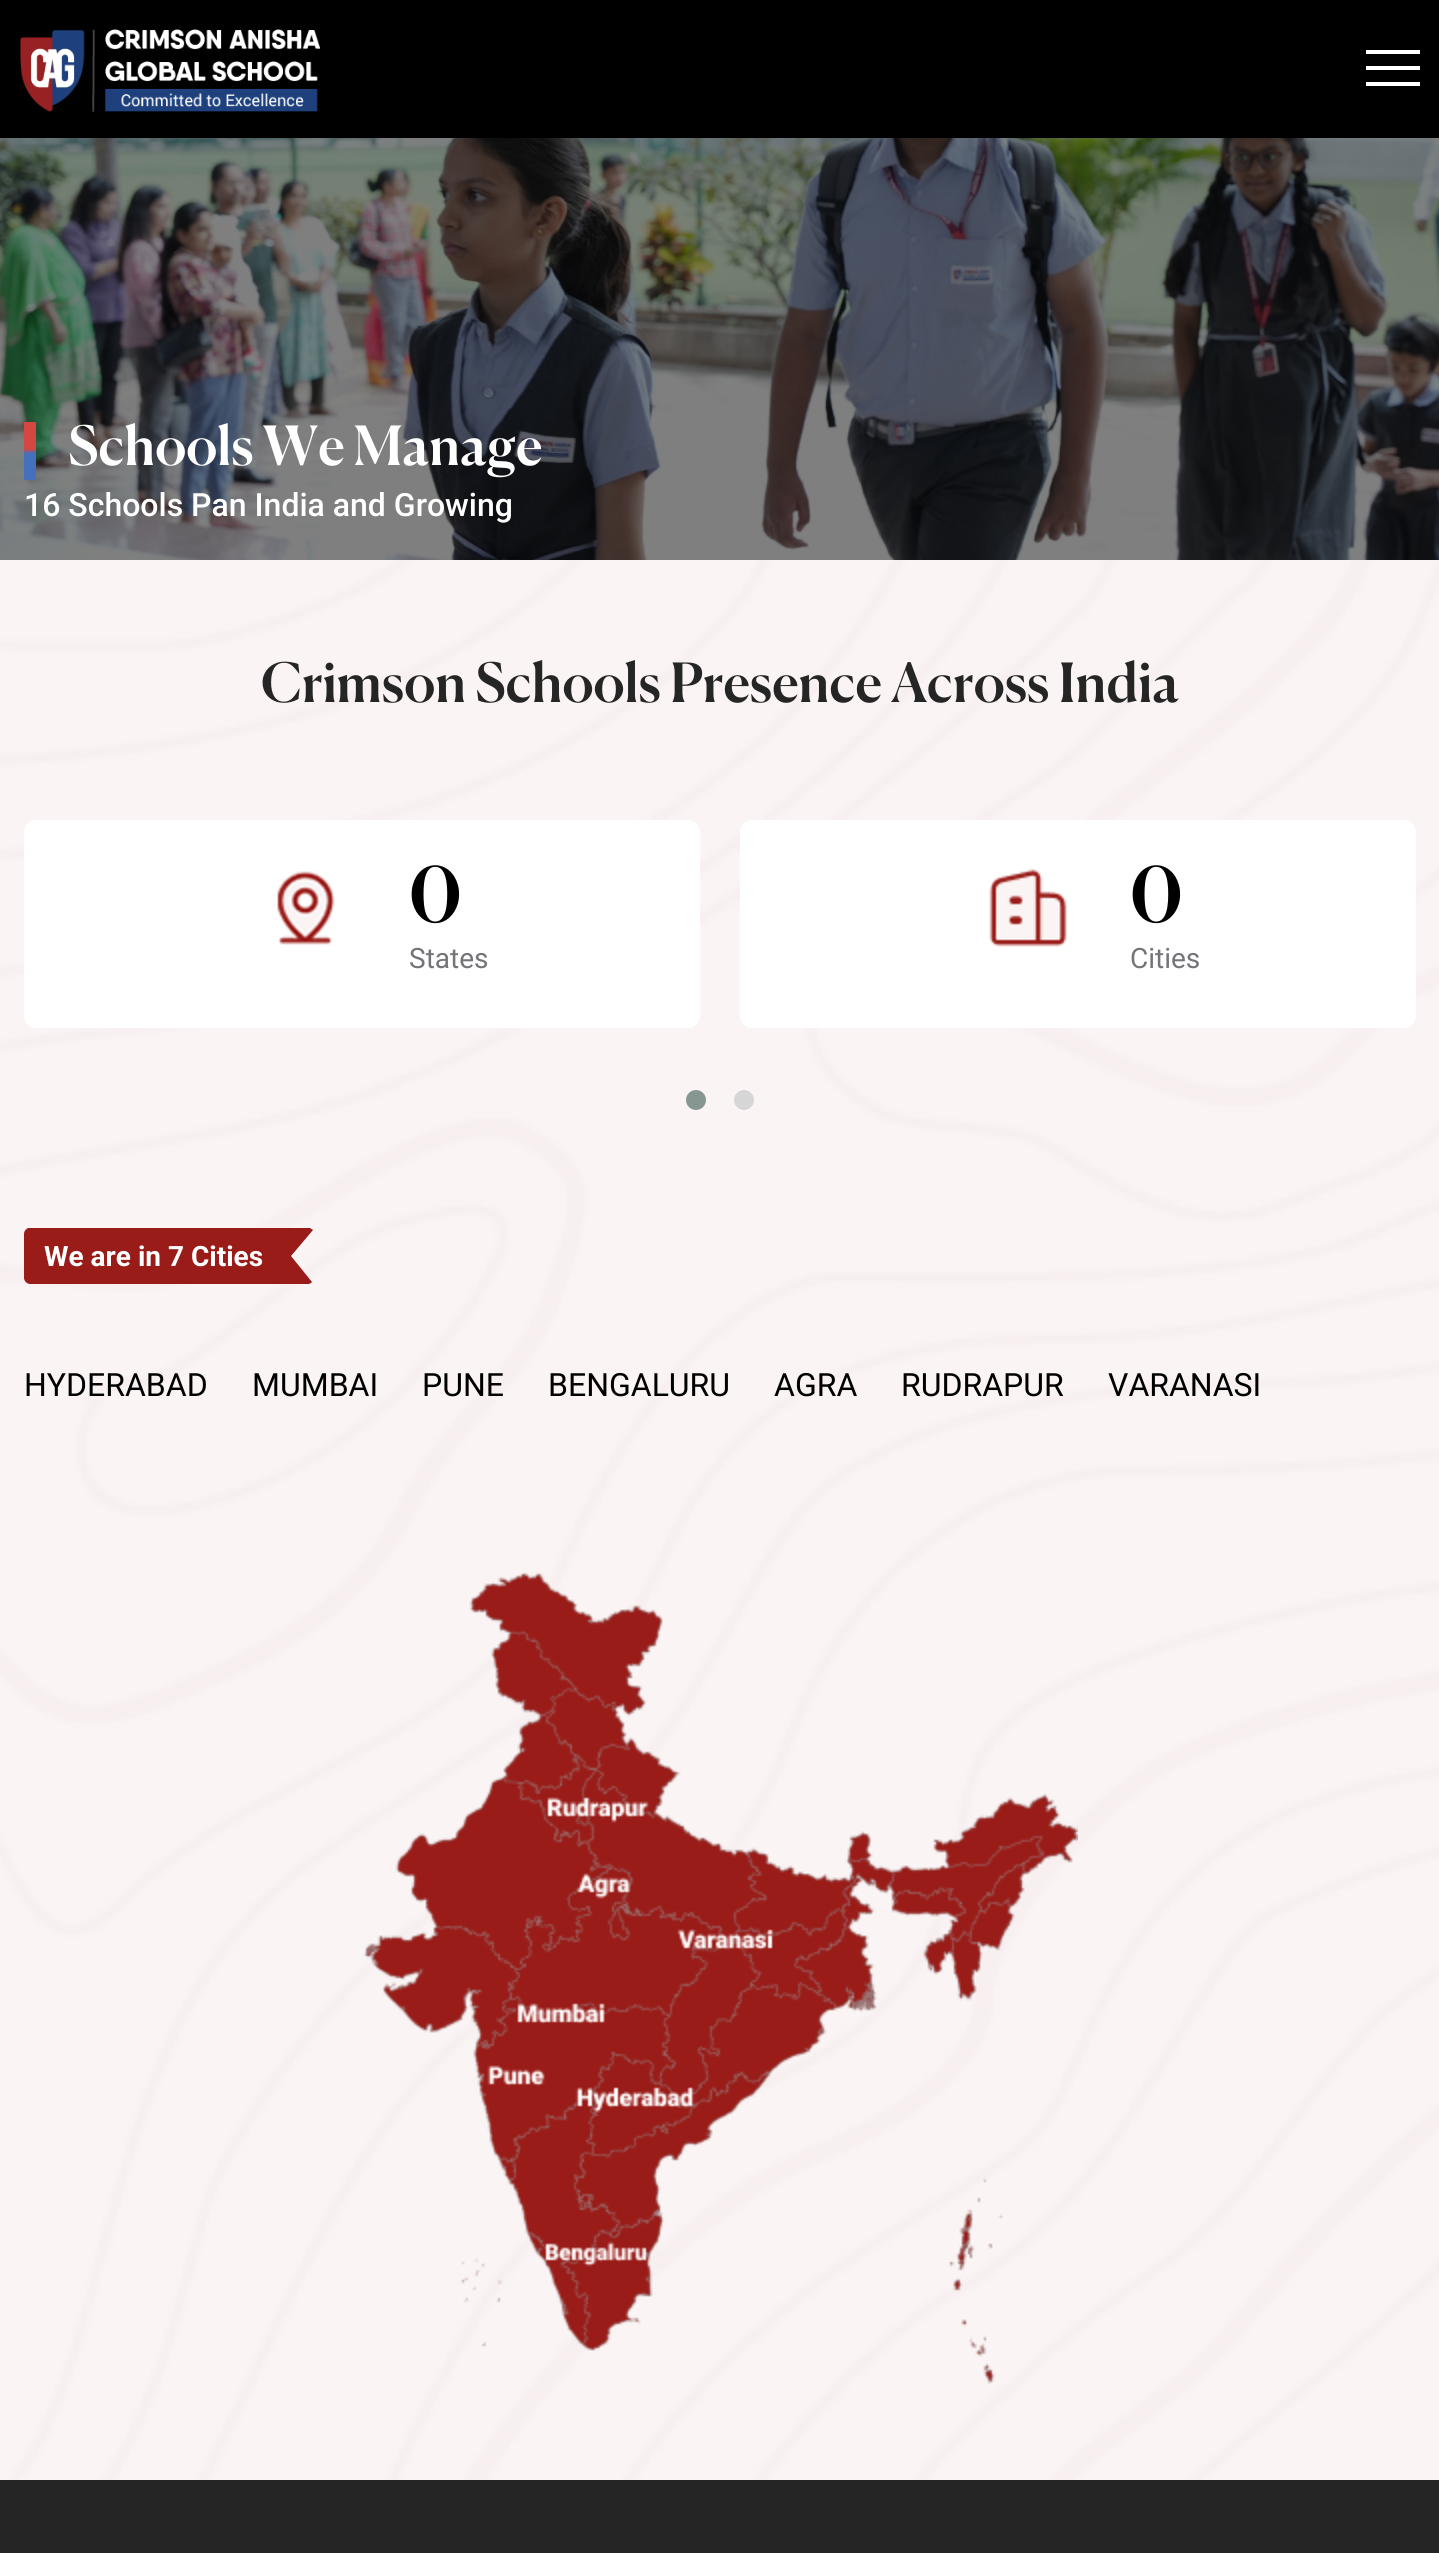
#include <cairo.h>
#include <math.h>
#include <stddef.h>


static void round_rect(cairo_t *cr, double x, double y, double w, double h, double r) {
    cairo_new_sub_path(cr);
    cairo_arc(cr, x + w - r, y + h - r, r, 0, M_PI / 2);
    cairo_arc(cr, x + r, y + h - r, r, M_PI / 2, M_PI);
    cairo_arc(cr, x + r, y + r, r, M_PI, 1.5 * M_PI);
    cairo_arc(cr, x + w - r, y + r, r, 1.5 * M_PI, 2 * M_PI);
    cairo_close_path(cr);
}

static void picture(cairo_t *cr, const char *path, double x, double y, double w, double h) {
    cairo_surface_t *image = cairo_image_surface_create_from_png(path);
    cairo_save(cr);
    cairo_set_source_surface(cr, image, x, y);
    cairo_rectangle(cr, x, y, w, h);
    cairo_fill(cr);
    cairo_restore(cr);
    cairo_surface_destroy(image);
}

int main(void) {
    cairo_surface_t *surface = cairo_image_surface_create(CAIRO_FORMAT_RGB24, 1439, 2553);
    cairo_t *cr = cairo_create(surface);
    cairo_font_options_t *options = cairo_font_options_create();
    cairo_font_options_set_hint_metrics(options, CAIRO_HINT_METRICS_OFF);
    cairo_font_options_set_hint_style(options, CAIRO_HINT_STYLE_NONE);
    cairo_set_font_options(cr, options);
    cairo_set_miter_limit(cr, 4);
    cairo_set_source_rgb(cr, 1, 1, 1);
    cairo_paint(cr);
    cairo_set_source_rgb(cr, 0, 0, 0);
    cairo_rectangle(cr, 0, 0, 1439, 138);
    cairo_fill(cr);
    picture(cr, "img1.png", 20, 29, 300, 83);
    cairo_set_source_rgb(cr, 1, 1, 1);
    cairo_rectangle(cr, 1366, 66, 54, 4);
    cairo_fill(cr);
    cairo_rectangle(cr, 1366, 50, 54, 4);
    cairo_fill(cr);
    cairo_rectangle(cr, 1366, 82, 54, 4);
    cairo_fill(cr);
    picture(cr, "img2.png", 0, 138, 1439, 422);
    picture(cr, "img3.png", 24, 422, 12, 58);
    cairo_select_font_face(cr, "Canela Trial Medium", CAIRO_FONT_SLANT_NORMAL, CAIRO_FONT_WEIGHT_NORMAL);
    cairo_set_font_size(cr, 54);
    cairo_move_to(cr, 68, 465);
    cairo_show_text(cr, "Schools We Manage");
    cairo_select_font_face(cr, "Roboto Medium", CAIRO_FONT_SLANT_NORMAL, CAIRO_FONT_WEIGHT_NORMAL);
    cairo_set_font_size(cr, 32);
    cairo_move_to(cr, 24, 516);
    cairo_show_text(cr, "16 Schools Pan India and Growing");
    picture(cr, "img4.png", 0, 560, 1439, 1920);
    cairo_select_font_face(cr, "Canela Trial Medium", CAIRO_FONT_SLANT_NORMAL, CAIRO_FONT_WEIGHT_NORMAL);
    cairo_set_font_size(cr, 54);
    cairo_set_source_rgb(cr, 0.145, 0.145, 0.145);
    cairo_move_to(cr, 261, 702);
    cairo_show_text(cr, "Crimson Schools Presence Across India");
    cairo_set_source_rgb(cr, 1, 1, 1);
    round_rect(cr, 24, 820, 676, 208, 12);
    cairo_fill(cr);
    picture(cr, "img5.png", 277, 871, 58, 74);
    cairo_set_font_size(cr, 76);
    cairo_set_source_rgb(cr, 0, 0, 0);
    cairo_move_to(cr, 409, 922);
    cairo_show_text(cr, "0");
    cairo_select_font_face(cr, "Roboto", CAIRO_FONT_SLANT_NORMAL, CAIRO_FONT_WEIGHT_NORMAL);
    cairo_set_font_size(cr, 28);
    cairo_set_source_rgb(cr, 0.451, 0.455, 0.467);
    cairo_move_to(cr, 409, 968);
    cairo_show_text(cr, "States");
    cairo_set_source_rgb(cr, 1, 1, 1);
    round_rect(cr, 740, 820, 676, 208, 12);
    cairo_fill(cr);
    picture(cr, "img6.png", 989, 869, 78, 78);
    cairo_select_font_face(cr, "Canela Trial Medium", CAIRO_FONT_SLANT_NORMAL, CAIRO_FONT_WEIGHT_NORMAL);
    cairo_set_font_size(cr, 76);
    cairo_set_source_rgb(cr, 0, 0, 0);
    cairo_move_to(cr, 1130, 922);
    cairo_show_text(cr, "0");
    cairo_select_font_face(cr, "Roboto", CAIRO_FONT_SLANT_NORMAL, CAIRO_FONT_WEIGHT_NORMAL);
    cairo_set_font_size(cr, 28);
    cairo_set_source_rgb(cr, 0.451, 0.455, 0.467);
    cairo_move_to(cr, 1130, 968);
    cairo_show_text(cr, "Cities");
    cairo_set_source_rgb(cr, 0.525, 0.592, 0.569);
    cairo_new_path(cr);
    cairo_arc(cr, 696, 1100, 10, 0, 2 * M_PI);
    cairo_fill(cr);
    cairo_set_source_rgb(cr, 0.839, 0.839, 0.839);
    cairo_arc(cr, 744, 1100, 10, 0, 2 * M_PI);
    cairo_fill(cr);
    cairo_set_source_rgb(cr, 0.6, 0.11, 0.094);
    cairo_new_path(cr);
    cairo_move_to(cr, 24, 1234);
    cairo_line_to(cr, 24, 1278);
    cairo_curve_to(cr, 24, 1281, 27, 1284, 30, 1284);
    cairo_line_to(cr, 308, 1284);
    cairo_curve_to(cr, 310, 1284, 311, 1283, 312, 1282);
    cairo_line_to(cr, 291, 1256);
    cairo_line_to(cr, 313, 1230);
    cairo_line_to(cr, 310, 1228);
    cairo_line_to(cr, 28, 1228);
    cairo_curve_to(cr, 26, 1229, 24, 1231, 24, 1234);
    cairo_close_path(cr);
    cairo_fill(cr);
    cairo_select_font_face(cr, "Roboto", CAIRO_FONT_SLANT_NORMAL, CAIRO_FONT_WEIGHT_BOLD);
    cairo_set_source_rgb(cr, 1, 1, 1);
    cairo_move_to(cr, 44, 1266);
    cairo_show_text(cr, "We are in 7 Cities");
    cairo_select_font_face(cr, "Roboto", CAIRO_FONT_SLANT_NORMAL, CAIRO_FONT_WEIGHT_NORMAL);
    cairo_set_font_size(cr, 32);
    cairo_set_source_rgb(cr, 0, 0, 0);
    cairo_move_to(cr, 24, 1396);
    cairo_show_text(cr, "HYDERABAD");
    cairo_move_to(cr, 252, 1396);
    cairo_show_text(cr, "MUMBAI");
    cairo_move_to(cr, 422, 1396);
    cairo_show_text(cr, "PUNE");
    cairo_move_to(cr, 548, 1396);
    cairo_show_text(cr, "BENGALURU");
    cairo_move_to(cr, 774, 1396);
    cairo_show_text(cr, "AGRA");
    cairo_move_to(cr, 901, 1396);
    cairo_show_text(cr, "RUDRAPUR");
    cairo_move_to(cr, 1108, 1396);
    cairo_show_text(cr, "VARANASI");
    picture(cr, "img7.png", 364, 1572, 714, 812);
    cairo_set_source_rgb(cr, 0.145, 0.145, 0.145);
    cairo_rectangle(cr, 0, 2480, 1439, 73);
    cairo_fill(cr);
    cairo_surface_write_to_png(surface, "page.png");
    cairo_font_options_destroy(options);
    cairo_destroy(cr);
    cairo_surface_destroy(surface);
    return 0;
}
